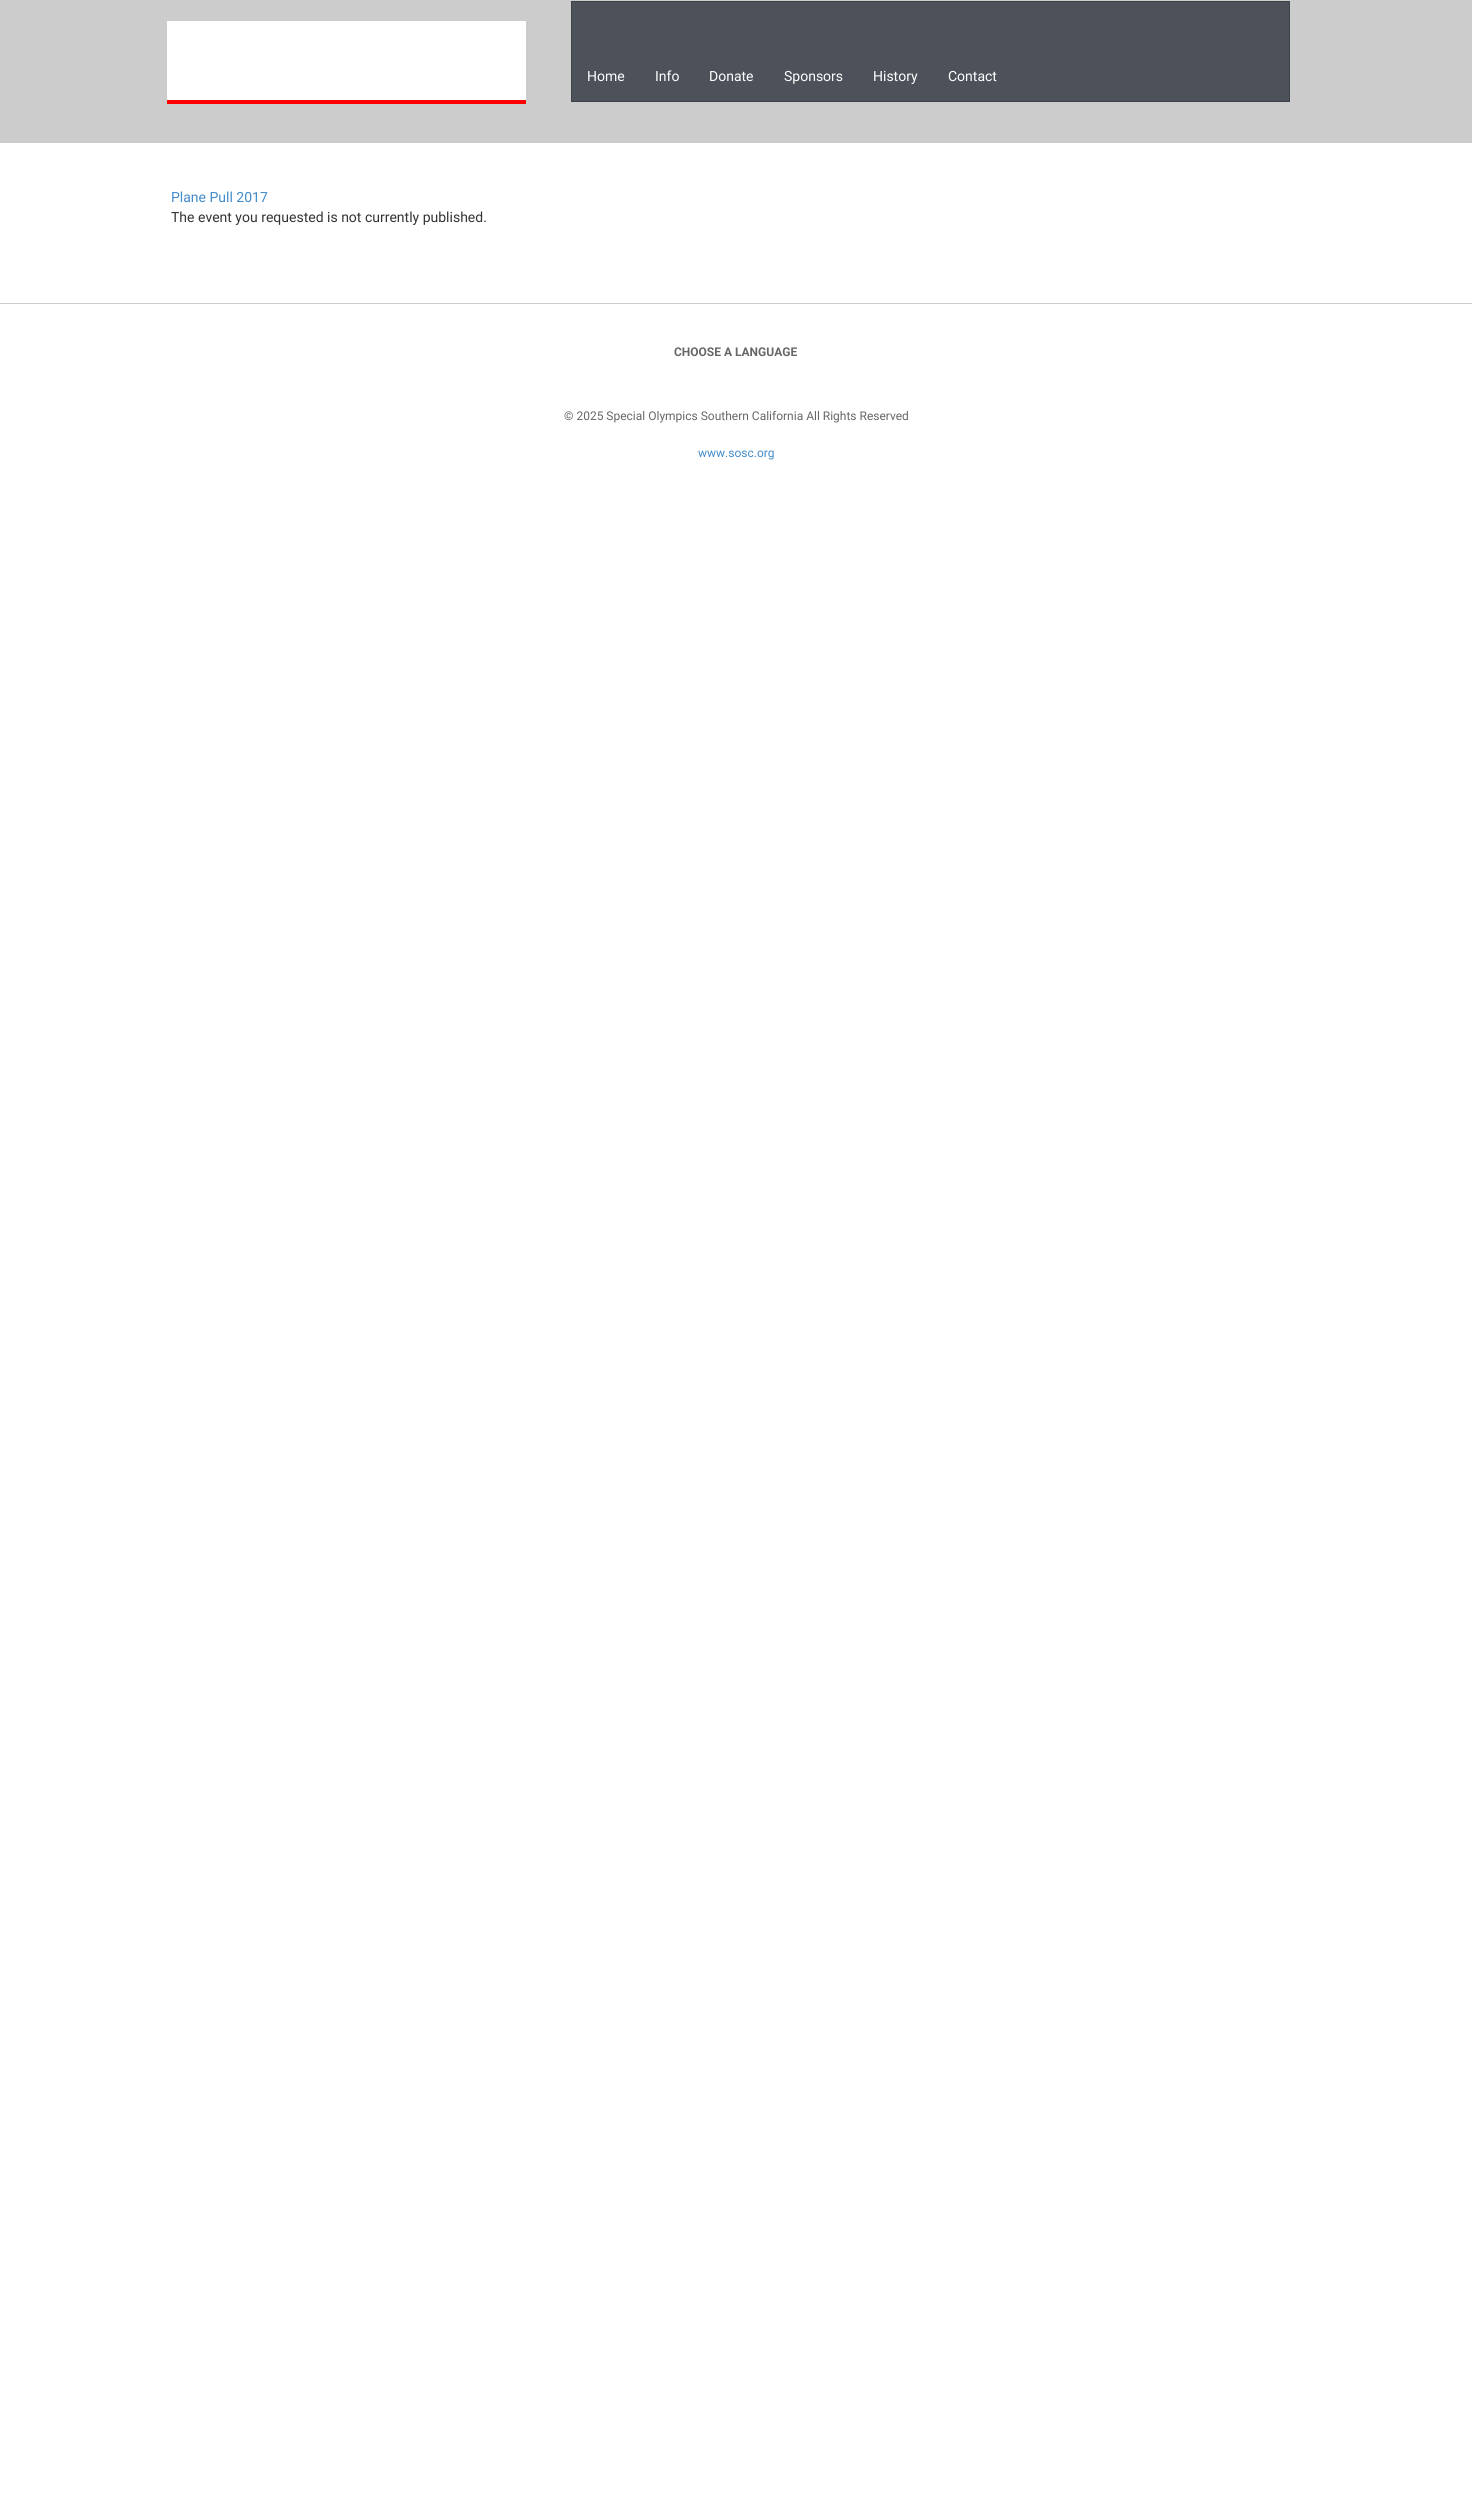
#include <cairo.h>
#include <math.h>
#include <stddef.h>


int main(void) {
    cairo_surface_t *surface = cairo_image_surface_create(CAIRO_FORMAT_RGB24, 1472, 2517);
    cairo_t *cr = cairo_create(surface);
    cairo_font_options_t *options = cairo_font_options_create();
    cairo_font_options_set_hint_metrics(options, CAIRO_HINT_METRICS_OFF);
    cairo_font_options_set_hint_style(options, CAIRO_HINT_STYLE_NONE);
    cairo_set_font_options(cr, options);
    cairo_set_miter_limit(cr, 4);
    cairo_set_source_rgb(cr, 1, 1, 1);
    cairo_paint(cr);
    cairo_set_source_rgb(cr, 0.8, 0.8, 0.8);
    cairo_rectangle(cr, 0, 0, 1472, 143);
    cairo_fill(cr);
    cairo_set_source_rgb(cr, 1, 1, 1);
    cairo_rectangle(cr, 167, 21, 359, 79);
    cairo_fill(cr);
    cairo_set_source_rgb(cr, 1, 0, 0);
    cairo_rectangle(cr, 167, 100, 359, 4);
    cairo_fill(cr);
    cairo_set_source_rgb(cr, 0.302, 0.322, 0.353);
    cairo_rectangle(cr, 571.5, 1.5, 718, 100);
    cairo_fill_preserve(cr);
    cairo_set_source_rgb(cr, 0.239, 0.259, 0.286);
    cairo_set_line_width(cr, 1);
    cairo_stroke(cr);
    cairo_select_font_face(cr, "Roboto", CAIRO_FONT_SLANT_NORMAL, CAIRO_FONT_WEIGHT_NORMAL);
    cairo_set_font_size(cr, 14);
    cairo_set_source_rgb(cr, 1, 1, 1);
    cairo_move_to(cr, 587, 81);
    cairo_show_text(cr, "Home");
    cairo_move_to(cr, 655, 81);
    cairo_show_text(cr, "Info");
    cairo_move_to(cr, 709, 81);
    cairo_show_text(cr, "Donate");
    cairo_move_to(cr, 784, 81);
    cairo_show_text(cr, "Sponsors");
    cairo_move_to(cr, 873, 81);
    cairo_show_text(cr, "History");
    cairo_move_to(cr, 948, 81);
    cairo_show_text(cr, "Contact");
    cairo_set_source_rgb(cr, 0.259, 0.545, 0.792);
    cairo_move_to(cr, 171, 202);
    cairo_show_text(cr, "Plane Pull 2017");
    cairo_set_source_rgb(cr, 0.2, 0.2, 0.2);
    cairo_move_to(cr, 171, 222);
    cairo_show_text(cr, "The event you requested is not currently published.");
    cairo_set_source_rgb(cr, 0.8, 0.8, 0.8);
    cairo_rectangle(cr, 0, 303, 1472, 1);
    cairo_fill(cr);
    cairo_select_font_face(cr, "Roboto", CAIRO_FONT_SLANT_NORMAL, CAIRO_FONT_WEIGHT_BOLD);
    cairo_set_font_size(cr, 12);
    cairo_set_source_rgb(cr, 0.4, 0.4, 0.4);
    cairo_move_to(cr, 674, 356);
    cairo_show_text(cr, "CHOOSE A LANGUAGE");
    cairo_select_font_face(cr, "Roboto", CAIRO_FONT_SLANT_NORMAL, CAIRO_FONT_WEIGHT_NORMAL);
    cairo_move_to(cr, 564, 420);
    cairo_show_text(cr, "© 2025 Special Olympics Southern California All Rights Reserved");
    cairo_set_source_rgb(cr, 0.259, 0.545, 0.792);
    cairo_move_to(cr, 698, 457);
    cairo_show_text(cr, "www.sosc.org");
    cairo_surface_write_to_png(surface, "page.png");
    cairo_font_options_destroy(options);
    cairo_destroy(cr);
    cairo_surface_destroy(surface);
    return 0;
}
